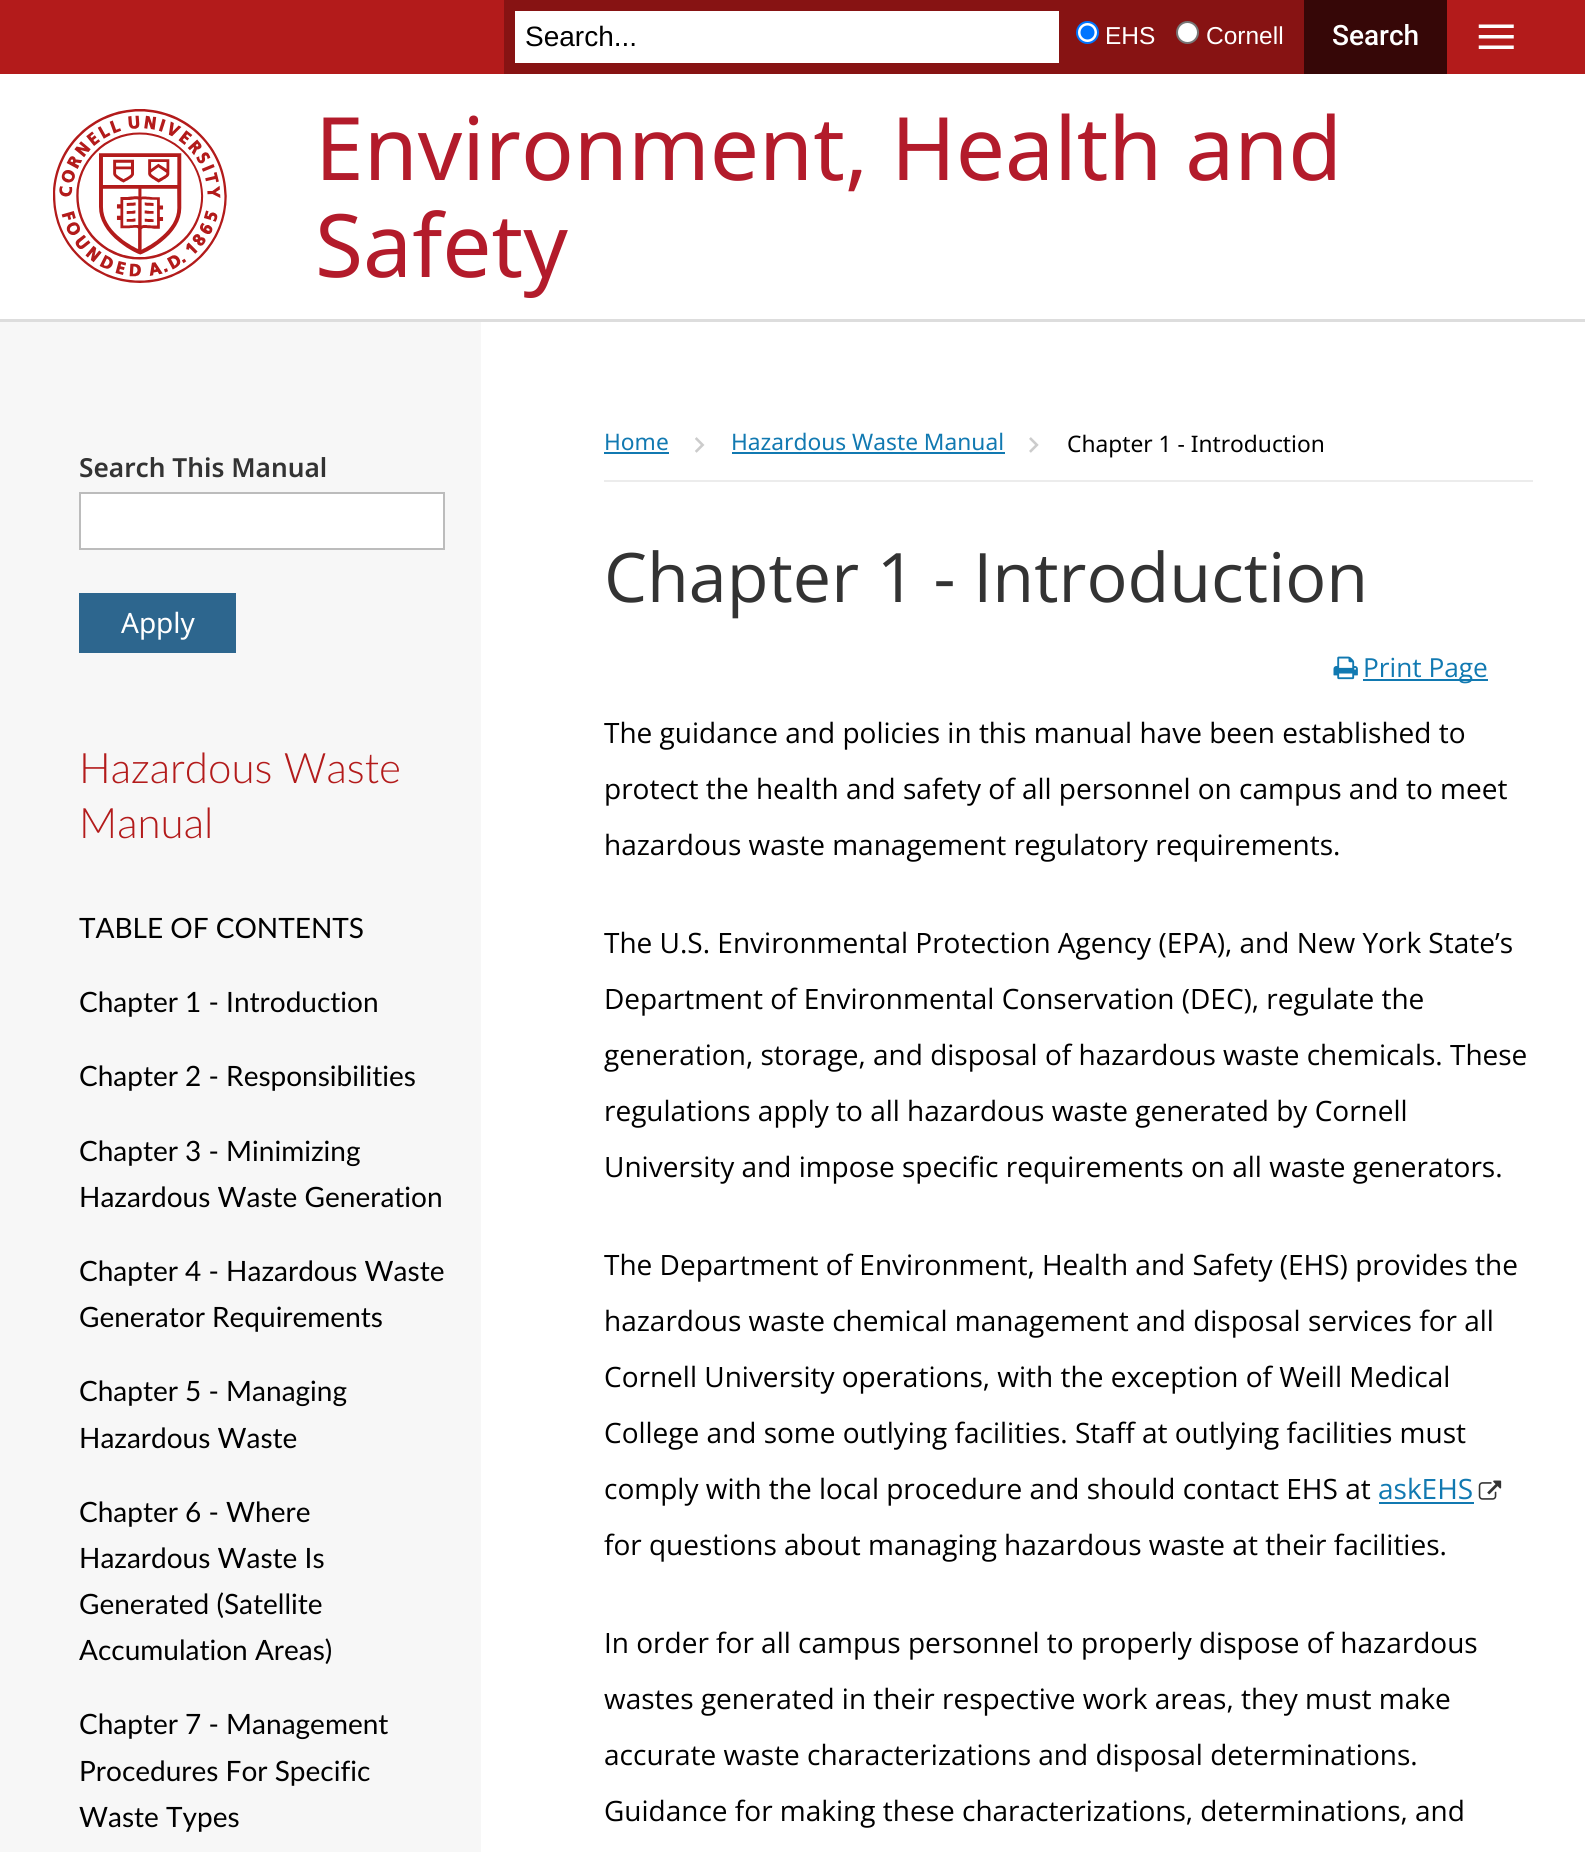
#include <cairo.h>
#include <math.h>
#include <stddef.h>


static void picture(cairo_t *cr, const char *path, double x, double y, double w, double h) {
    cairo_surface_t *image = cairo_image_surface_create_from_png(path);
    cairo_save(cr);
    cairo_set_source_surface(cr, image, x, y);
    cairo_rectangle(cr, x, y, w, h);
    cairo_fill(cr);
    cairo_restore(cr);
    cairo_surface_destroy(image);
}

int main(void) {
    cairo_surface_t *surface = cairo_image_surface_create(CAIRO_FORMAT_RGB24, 1585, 1852);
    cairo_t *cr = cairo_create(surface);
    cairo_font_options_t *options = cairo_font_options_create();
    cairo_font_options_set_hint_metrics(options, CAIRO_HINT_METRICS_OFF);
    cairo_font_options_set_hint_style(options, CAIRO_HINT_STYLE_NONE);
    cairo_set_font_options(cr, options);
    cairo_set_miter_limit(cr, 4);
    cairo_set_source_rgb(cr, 1, 1, 1);
    cairo_paint(cr);
    cairo_set_source_rgb(cr, 0.702, 0.106, 0.106);
    cairo_rectangle(cr, 0, 0, 1585, 74);
    cairo_fill(cr);
    cairo_set_source_rgb(cr, 0.529, 0.078, 0.078);
    cairo_rectangle(cr, 504, 0, 800, 74);
    cairo_fill(cr);
    cairo_set_source_rgb(cr, 1, 1, 1);
    cairo_rectangle(cr, 515, 11, 544, 52);
    cairo_fill(cr);
    cairo_select_font_face(cr, "Liberation Sans", CAIRO_FONT_SLANT_NORMAL, CAIRO_FONT_WEIGHT_NORMAL);
    cairo_set_font_size(cr, 28);
    cairo_set_source_rgb(cr, 0, 0, 0);
    cairo_move_to(cr, 525, 46);
    cairo_show_text(cr, "Search...");
    cairo_set_source_rgb(cr, 1, 1, 1);
    cairo_new_path(cr);
    cairo_arc(cr, 1087.5, 32.5, 10.5, 0, 2 * M_PI);
    cairo_fill_preserve(cr);
    cairo_set_source_rgb(cr, 0, 0.459, 1);
    cairo_stroke(cr);
    cairo_arc(cr, 1087.5, 32.5, 7, 0, 2 * M_PI);
    cairo_fill(cr);
    cairo_set_font_size(cr, 24.5);
    cairo_set_source_rgb(cr, 1, 1, 1);
    cairo_move_to(cr, 1105, 44);
    cairo_show_text(cr, "EHS");
    cairo_new_path(cr);
    cairo_arc(cr, 1187.5, 32.5, 10.5, 0, 2 * M_PI);
    cairo_fill_preserve(cr);
    cairo_set_source_rgb(cr, 0.463, 0.463, 0.463);
    cairo_stroke(cr);
    cairo_set_source_rgb(cr, 1, 1, 1);
    cairo_move_to(cr, 1206, 44);
    cairo_show_text(cr, "Cornell");
    cairo_set_source_rgb(cr, 0.212, 0.031, 0.031);
    cairo_rectangle(cr, 1304, 0, 143, 74);
    cairo_fill(cr);
    cairo_select_font_face(cr, "Roboto Medium", CAIRO_FONT_SLANT_NORMAL, CAIRO_FONT_WEIGHT_NORMAL);
    cairo_set_font_size(cr, 28);
    cairo_set_source_rgb(cr, 1, 1, 1);
    cairo_move_to(cr, 1332, 45);
    cairo_show_text(cr, "Search");
    picture(cr, "img1.png", 1478, 24, 36, 25);
    picture(cr, "img2.png", 53, 109, 174, 174);
    cairo_select_font_face(cr, "Noto Sans", CAIRO_FONT_SLANT_NORMAL, CAIRO_FONT_WEIGHT_NORMAL);
    cairo_set_font_size(cr, 87.5);
    cairo_set_source_rgb(cr, 0.702, 0.106, 0.169);
    cairo_move_to(cr, 315, 180);
    cairo_show_text(cr, "Environment, Health and");
    cairo_move_to(cr, 315, 277);
    cairo_show_text(cr, "Safety");
    cairo_set_source_rgb(cr, 0.867, 0.867, 0.867);
    cairo_rectangle(cr, 0, 319, 1585, 3);
    cairo_fill(cr);
    cairo_set_source_rgb(cr, 0.965, 0.965, 0.965);
    cairo_rectangle(cr, 0, 322, 481, 1530);
    cairo_fill(cr);
    cairo_select_font_face(cr, "Noto Sans SemiBold", CAIRO_FONT_SLANT_NORMAL, CAIRO_FONT_WEIGHT_NORMAL);
    cairo_set_font_size(cr, 26.25);
    cairo_set_source_rgb(cr, 0.2, 0.2, 0.2);
    cairo_move_to(cr, 79, 477);
    cairo_show_text(cr, "Search This Manual");
    cairo_set_source_rgb(cr, 1, 1, 1);
    cairo_rectangle(cr, 80, 493, 364, 56);
    cairo_fill_preserve(cr);
    cairo_set_source_rgb(cr, 0.737, 0.737, 0.737);
    cairo_stroke(cr);
    cairo_set_source_rgb(cr, 0.176, 0.4, 0.557);
    cairo_rectangle(cr, 79, 593, 157, 60);
    cairo_fill(cr);
    cairo_select_font_face(cr, "Noto Sans", CAIRO_FONT_SLANT_NORMAL, CAIRO_FONT_WEIGHT_NORMAL);
    cairo_set_font_size(cr, 28);
    cairo_set_source_rgb(cr, 1, 1, 1);
    cairo_move_to(cr, 121, 633);
    cairo_show_text(cr, "Apply");
    cairo_select_font_face(cr, "Lato Light", CAIRO_FONT_SLANT_NORMAL, CAIRO_FONT_WEIGHT_NORMAL);
    cairo_set_font_size(cr, 42);
    cairo_set_source_rgb(cr, 0.702, 0.106, 0.106);
    cairo_move_to(cr, 79, 783);
    cairo_show_text(cr, "Hazardous Waste");
    cairo_move_to(cr, 79, 838);
    cairo_show_text(cr, "Manual");
    cairo_select_font_face(cr, "Lato", CAIRO_FONT_SLANT_NORMAL, CAIRO_FONT_WEIGHT_NORMAL);
    cairo_set_font_size(cr, 28);
    cairo_set_source_rgb(cr, 0, 0, 0);
    cairo_move_to(cr, 79, 938);
    cairo_show_text(cr, "TABLE OF CONTENTS");
    cairo_move_to(cr, 79, 1012);
    cairo_show_text(cr, "Chapter 1 - Introduction");
    cairo_move_to(cr, 79, 1086);
    cairo_show_text(cr, "Chapter 2 - Responsibilities");
    cairo_move_to(cr, 79, 1161);
    cairo_show_text(cr, "Chapter 3 - Minimizing");
    cairo_move_to(cr, 79, 1207);
    cairo_show_text(cr, "Hazardous Waste Generation");
    cairo_move_to(cr, 79, 1281);
    cairo_show_text(cr, "Chapter 4 - Hazardous Waste");
    cairo_move_to(cr, 79, 1327);
    cairo_show_text(cr, "Generator Requirements");
    cairo_move_to(cr, 79, 1401);
    cairo_show_text(cr, "Chapter 5 - Managing");
    cairo_move_to(cr, 79, 1448);
    cairo_show_text(cr, "Hazardous Waste");
    cairo_move_to(cr, 79, 1522);
    cairo_show_text(cr, "Chapter 6 - Where");
    cairo_move_to(cr, 79, 1568);
    cairo_show_text(cr, "Hazardous Waste Is");
    cairo_move_to(cr, 79, 1614);
    cairo_show_text(cr, "Generated (Satellite");
    cairo_move_to(cr, 79, 1660);
    cairo_show_text(cr, "Accumulation Areas)");
    cairo_move_to(cr, 79, 1734);
    cairo_show_text(cr, "Chapter 7 - Management");
    cairo_move_to(cr, 79, 1781);
    cairo_show_text(cr, "Procedures For Specific");
    cairo_move_to(cr, 79, 1827);
    cairo_show_text(cr, "Waste Types");
    cairo_set_source_rgb(cr, 0.922, 0.922, 0.922);
    cairo_rectangle(cr, 604, 480, 929, 2);
    cairo_fill(cr);
    cairo_select_font_face(cr, "Noto Sans", CAIRO_FONT_SLANT_NORMAL, CAIRO_FONT_WEIGHT_NORMAL);
    cairo_set_font_size(cr, 22.75);
    cairo_set_source_rgb(cr, 0.067, 0.475, 0.694);
    cairo_move_to(cr, 604, 450);
    cairo_show_text(cr, "Home");
    cairo_rectangle(cr, 604, 452, 65, 2);
    cairo_fill(cr);
    picture(cr, "img3.png", 695, 437, 10, 16);
    cairo_move_to(cr, 731, 450);
    cairo_show_text(cr, "Hazardous Waste Manual");
    cairo_rectangle(cr, 732, 452, 273, 2);
    cairo_fill(cr);
    picture(cr, "img4.png", 1029, 437, 10, 16);
    cairo_set_source_rgb(cr, 0, 0, 0);
    cairo_move_to(cr, 1067, 452);
    cairo_show_text(cr, "Chapter 1 - Introduction");
    cairo_select_font_face(cr, "Open Sans", CAIRO_FONT_SLANT_NORMAL, CAIRO_FONT_WEIGHT_NORMAL);
    cairo_set_font_size(cr, 68.25);
    cairo_set_source_rgb(cr, 0.2, 0.2, 0.2);
    cairo_move_to(cr, 604, 602);
    cairo_show_text(cr, "Chapter 1 - Introduction");
    picture(cr, "img5.png", 1333, 656, 25, 24);
    cairo_set_source_rgb(cr, 0.067, 0.475, 0.694);
    cairo_rectangle(cr, 1363, 679, 125, 2);
    cairo_fill(cr);
    cairo_set_font_size(cr, 26.25);
    cairo_move_to(cr, 1363, 677);
    cairo_show_text(cr, "Print Page");
    cairo_set_font_size(cr, 28);
    cairo_set_source_rgb(cr, 0, 0, 0);
    cairo_move_to(cr, 604, 743);
    cairo_show_text(cr, "The guidance and policies in this manual have been established to");
    cairo_move_to(cr, 604, 799);
    cairo_show_text(cr, "protect the health and safety of all personnel on campus and to meet");
    cairo_move_to(cr, 604, 855);
    cairo_show_text(cr, "hazardous waste management regulatory requirements.");
    cairo_move_to(cr, 604, 953);
    cairo_show_text(cr, "The U.S. Environmental Protection Agency (EPA), and New York State’s");
    cairo_move_to(cr, 604, 1009);
    cairo_show_text(cr, "Department of Environmental Conservation (DEC), regulate the");
    cairo_move_to(cr, 604, 1065);
    cairo_show_text(cr, "generation, storage, and disposal of hazardous waste chemicals. These");
    cairo_move_to(cr, 604, 1121);
    cairo_show_text(cr, "regulations apply to all hazardous waste generated by Cornell");
    cairo_move_to(cr, 604, 1177);
    cairo_show_text(cr, "University and impose specific requirements on all waste generators.");
    cairo_move_to(cr, 604, 1275);
    cairo_show_text(cr, "The Department of Environment, Health and Safety (EHS) provides the");
    cairo_move_to(cr, 604, 1331);
    cairo_show_text(cr, "hazardous waste chemical management and disposal services for all");
    cairo_move_to(cr, 604, 1387);
    cairo_show_text(cr, "Cornell University operations, with the exception of Weill Medical");
    cairo_move_to(cr, 604, 1443);
    cairo_show_text(cr, "College and some outlying facilities. Staff at outlying facilities must");
    cairo_move_to(cr, 604, 1499);
    cairo_show_text(cr, "comply with the local procedure and should contact EHS at");
    cairo_set_source_rgb(cr, 0.067, 0.475, 0.694);
    cairo_move_to(cr, 1378, 1499);
    cairo_show_text(cr, "askEHS");
    cairo_rectangle(cr, 1379, 1502, 95, 2);
    cairo_fill(cr);
    picture(cr, "img6.png", 1478, 1480, 24, 20);
    cairo_set_source_rgb(cr, 0, 0, 0);
    cairo_move_to(cr, 604, 1555);
    cairo_show_text(cr, "for questions about managing hazardous waste at their facilities.");
    cairo_move_to(cr, 604, 1653);
    cairo_show_text(cr, "In order for all campus personnel to properly dispose of hazardous");
    cairo_move_to(cr, 604, 1709);
    cairo_show_text(cr, "wastes generated in their respective work areas, they must make");
    cairo_move_to(cr, 604, 1765);
    cairo_show_text(cr, "accurate waste characterizations and disposal determinations.");
    cairo_move_to(cr, 604, 1821);
    cairo_show_text(cr, "Guidance for making these characterizations, determinations, and");
    cairo_surface_write_to_png(surface, "page.png");
    cairo_font_options_destroy(options);
    cairo_destroy(cr);
    cairo_surface_destroy(surface);
    return 0;
}
